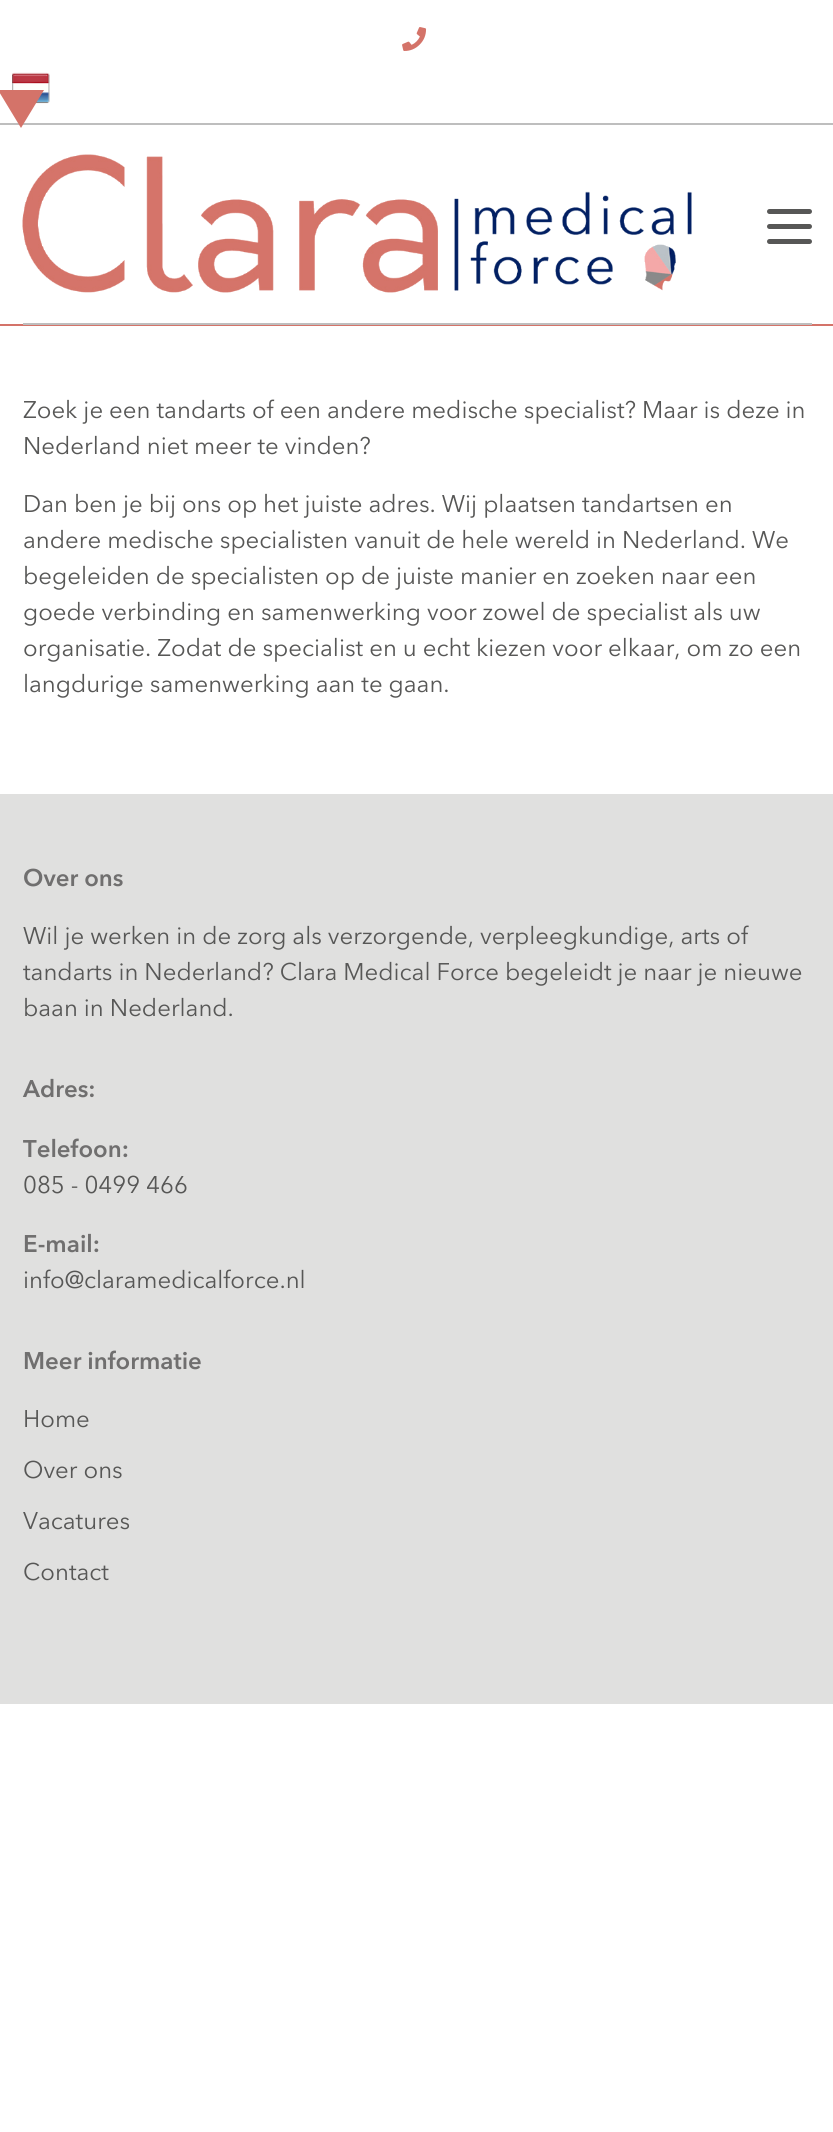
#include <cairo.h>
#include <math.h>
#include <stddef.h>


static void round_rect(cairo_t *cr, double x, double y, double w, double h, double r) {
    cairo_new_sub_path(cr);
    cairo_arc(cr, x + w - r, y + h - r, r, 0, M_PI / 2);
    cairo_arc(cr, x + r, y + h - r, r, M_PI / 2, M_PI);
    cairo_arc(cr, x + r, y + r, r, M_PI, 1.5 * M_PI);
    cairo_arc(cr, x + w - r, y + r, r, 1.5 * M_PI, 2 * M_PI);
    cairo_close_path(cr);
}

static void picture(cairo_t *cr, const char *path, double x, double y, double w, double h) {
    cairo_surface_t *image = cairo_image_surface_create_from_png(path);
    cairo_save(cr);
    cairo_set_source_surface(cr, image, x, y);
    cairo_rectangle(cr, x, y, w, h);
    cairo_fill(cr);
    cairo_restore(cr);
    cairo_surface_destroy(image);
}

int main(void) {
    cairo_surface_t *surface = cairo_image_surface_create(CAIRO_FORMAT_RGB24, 833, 2132);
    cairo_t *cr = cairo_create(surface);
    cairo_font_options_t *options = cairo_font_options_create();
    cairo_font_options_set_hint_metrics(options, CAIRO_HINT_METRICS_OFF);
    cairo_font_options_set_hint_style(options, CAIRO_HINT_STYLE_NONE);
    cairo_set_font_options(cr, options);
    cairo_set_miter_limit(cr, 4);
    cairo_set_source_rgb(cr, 1, 1, 1);
    cairo_paint(cr);
    cairo_set_source_rgb(cr, 0.831, 0.451, 0.412);
    cairo_rectangle(cr, 0, 324, 833, 2);
    cairo_fill(cr);
    cairo_set_source_rgb(cr, 0.745, 0.745, 0.745);
    cairo_rectangle(cr, 0, 123, 833, 2);
    cairo_fill(cr);
    picture(cr, "img1.png", 402, 27, 25, 24);
    picture(cr, "img2.png", 12, 72, 38, 32);
    cairo_set_source_rgb(cr, 0.831, 0.451, 0.412);
    cairo_new_path(cr);
    cairo_move_to(cr, -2, 90);
    cairo_line_to(cr, 44, 90);
    cairo_line_to(cr, 21, 128);
    cairo_close_path(cr);
    cairo_fill(cr);
    cairo_set_source_rgb(cr, 0.745, 0.745, 0.745);
    cairo_rectangle(cr, 23, 323, 789, 2);
    cairo_fill(cr);
    picture(cr, "img3.png", 22, 154, 670, 139);
    cairo_set_source_rgb(cr, 0.341, 0.341, 0.337);
    round_rect(cr, 767, 209, 45, 5, 2.5);
    cairo_fill(cr);
    round_rect(cr, 767, 224, 45, 5, 2.5);
    cairo_fill(cr);
    round_rect(cr, 767, 239, 45, 5, 2.5);
    cairo_fill(cr);
    cairo_select_font_face(cr, "Avenir Next", CAIRO_FONT_SLANT_NORMAL, CAIRO_FONT_WEIGHT_NORMAL);
    cairo_set_font_size(cr, 24);
    cairo_move_to(cr, 23, 418);
    cairo_show_text(cr, "Zoek je een tandarts of een andere medische specialist? Maar is deze in");
    cairo_move_to(cr, 23, 454);
    cairo_show_text(cr, "Nederland niet meer te vinden?");
    cairo_move_to(cr, 23, 512);
    cairo_show_text(cr, "Dan ben je bij ons op het juiste adres. Wij plaatsen tandartsen en");
    cairo_move_to(cr, 23, 548);
    cairo_show_text(cr, "andere medische specialisten vanuit de hele wereld in Nederland. We");
    cairo_move_to(cr, 23, 584);
    cairo_show_text(cr, "begeleiden de specialisten op de juiste manier en zoeken naar een");
    cairo_move_to(cr, 23, 620);
    cairo_show_text(cr, "goede verbinding en samenwerking voor zowel de specialist als uw");
    cairo_move_to(cr, 23, 656);
    cairo_show_text(cr, "organisatie. Zodat de specialist en u echt kiezen voor elkaar, om zo een");
    cairo_move_to(cr, 23, 692);
    cairo_show_text(cr, "langdurige samenwerking aan te gaan.");
    cairo_set_source_rgb(cr, 0.878, 0.878, 0.875);
    cairo_rectangle(cr, 0, 794, 833, 910);
    cairo_fill(cr);
    cairo_select_font_face(cr, "Avenir Next SemiBold", CAIRO_FONT_SLANT_NORMAL, CAIRO_FONT_WEIGHT_NORMAL);
    cairo_set_source_rgb(cr, 0.439, 0.435, 0.435);
    cairo_move_to(cr, 23, 886);
    cairo_show_text(cr, "Over ons");
    cairo_select_font_face(cr, "Avenir Next", CAIRO_FONT_SLANT_NORMAL, CAIRO_FONT_WEIGHT_NORMAL);
    cairo_set_source_rgb(cr, 0.341, 0.341, 0.337);
    cairo_move_to(cr, 23, 944);
    cairo_show_text(cr, "Wil je werken in de zorg als verzorgende, verpleegkundige, arts of");
    cairo_move_to(cr, 23, 980);
    cairo_show_text(cr, "tandarts in Nederland? Clara Medical Force begeleidt je naar je nieuwe");
    cairo_move_to(cr, 23, 1016);
    cairo_show_text(cr, "baan in Nederland.");
    cairo_select_font_face(cr, "Avenir Next SemiBold", CAIRO_FONT_SLANT_NORMAL, CAIRO_FONT_WEIGHT_NORMAL);
    cairo_set_source_rgb(cr, 0.439, 0.435, 0.435);
    cairo_move_to(cr, 23, 1097);
    cairo_show_text(cr, "Adres:");
    cairo_move_to(cr, 23, 1157);
    cairo_show_text(cr, "Telefoon:");
    cairo_select_font_face(cr, "Avenir Next", CAIRO_FONT_SLANT_NORMAL, CAIRO_FONT_WEIGHT_NORMAL);
    cairo_set_source_rgb(cr, 0.341, 0.341, 0.337);
    cairo_move_to(cr, 23, 1193);
    cairo_show_text(cr, "085 - 0499 466");
    cairo_select_font_face(cr, "Avenir Next SemiBold", CAIRO_FONT_SLANT_NORMAL, CAIRO_FONT_WEIGHT_NORMAL);
    cairo_set_source_rgb(cr, 0.439, 0.435, 0.435);
    cairo_move_to(cr, 23, 1252);
    cairo_show_text(cr, "E-mail:");
    cairo_select_font_face(cr, "Avenir Next", CAIRO_FONT_SLANT_NORMAL, CAIRO_FONT_WEIGHT_NORMAL);
    cairo_set_source_rgb(cr, 0.341, 0.341, 0.337);
    cairo_move_to(cr, 23, 1288);
    cairo_show_text(cr, "info@claramedicalforce.nl");
    cairo_select_font_face(cr, "Avenir Next SemiBold", CAIRO_FONT_SLANT_NORMAL, CAIRO_FONT_WEIGHT_NORMAL);
    cairo_set_source_rgb(cr, 0.439, 0.435, 0.435);
    cairo_move_to(cr, 23, 1369);
    cairo_show_text(cr, "Meer informatie");
    cairo_select_font_face(cr, "Avenir Next", CAIRO_FONT_SLANT_NORMAL, CAIRO_FONT_WEIGHT_NORMAL);
    cairo_set_source_rgb(cr, 0.341, 0.341, 0.337);
    cairo_move_to(cr, 23, 1427);
    cairo_show_text(cr, "Home");
    cairo_move_to(cr, 23, 1478);
    cairo_show_text(cr, "Over ons");
    cairo_move_to(cr, 23, 1529);
    cairo_show_text(cr, "Vacatures");
    cairo_move_to(cr, 23, 1580);
    cairo_show_text(cr, "Contact");
    cairo_surface_write_to_png(surface, "page.png");
    cairo_font_options_destroy(options);
    cairo_destroy(cr);
    cairo_surface_destroy(surface);
    return 0;
}
